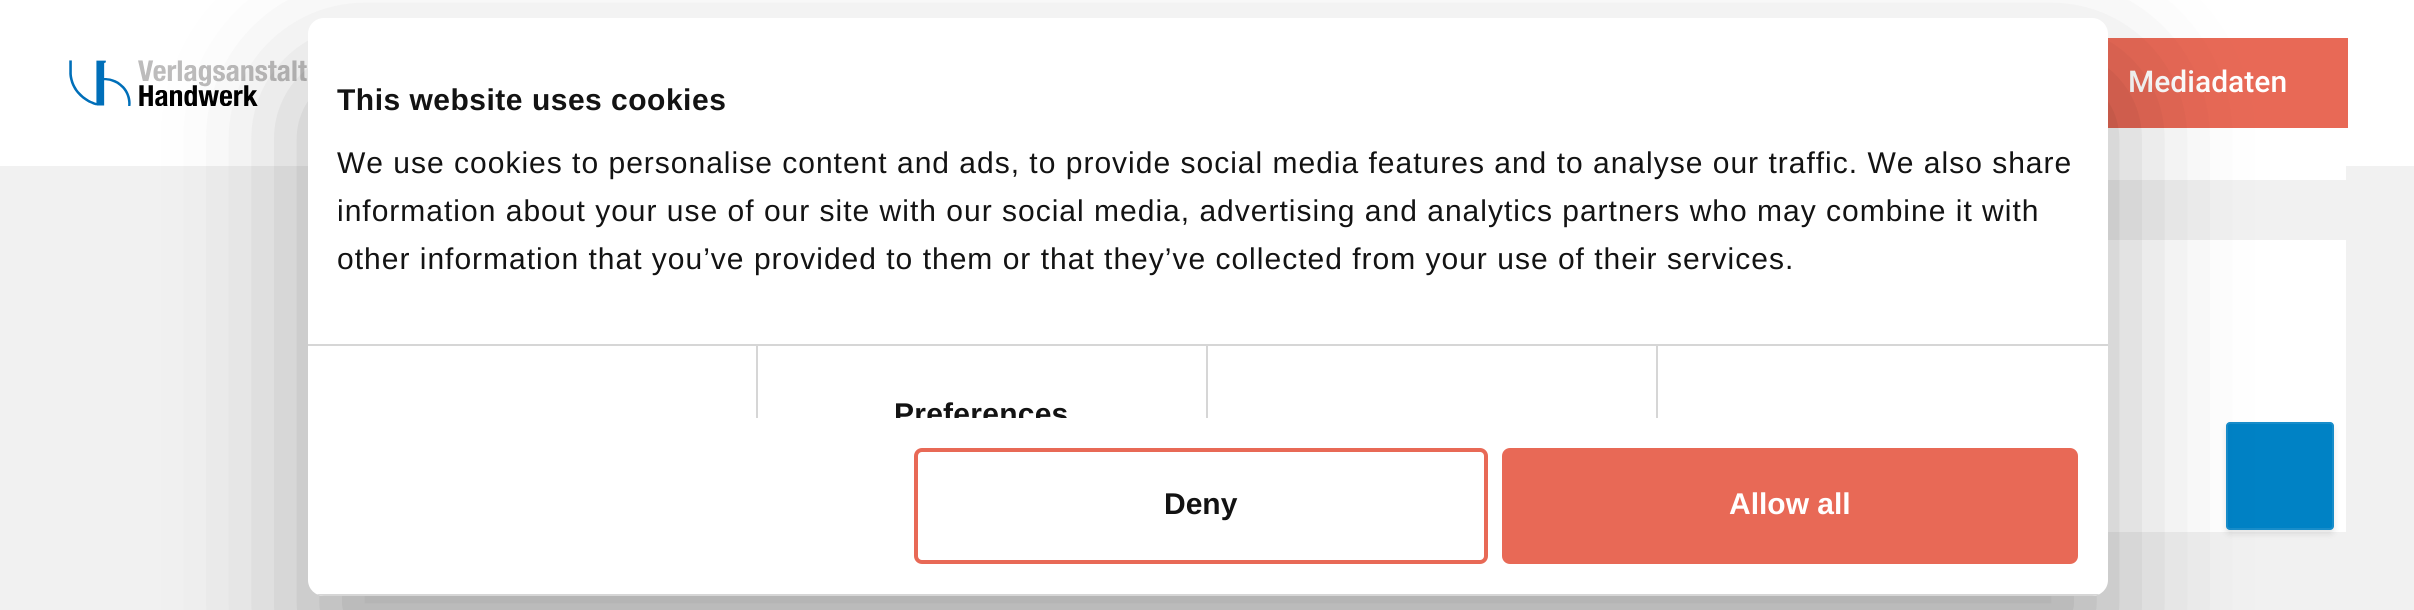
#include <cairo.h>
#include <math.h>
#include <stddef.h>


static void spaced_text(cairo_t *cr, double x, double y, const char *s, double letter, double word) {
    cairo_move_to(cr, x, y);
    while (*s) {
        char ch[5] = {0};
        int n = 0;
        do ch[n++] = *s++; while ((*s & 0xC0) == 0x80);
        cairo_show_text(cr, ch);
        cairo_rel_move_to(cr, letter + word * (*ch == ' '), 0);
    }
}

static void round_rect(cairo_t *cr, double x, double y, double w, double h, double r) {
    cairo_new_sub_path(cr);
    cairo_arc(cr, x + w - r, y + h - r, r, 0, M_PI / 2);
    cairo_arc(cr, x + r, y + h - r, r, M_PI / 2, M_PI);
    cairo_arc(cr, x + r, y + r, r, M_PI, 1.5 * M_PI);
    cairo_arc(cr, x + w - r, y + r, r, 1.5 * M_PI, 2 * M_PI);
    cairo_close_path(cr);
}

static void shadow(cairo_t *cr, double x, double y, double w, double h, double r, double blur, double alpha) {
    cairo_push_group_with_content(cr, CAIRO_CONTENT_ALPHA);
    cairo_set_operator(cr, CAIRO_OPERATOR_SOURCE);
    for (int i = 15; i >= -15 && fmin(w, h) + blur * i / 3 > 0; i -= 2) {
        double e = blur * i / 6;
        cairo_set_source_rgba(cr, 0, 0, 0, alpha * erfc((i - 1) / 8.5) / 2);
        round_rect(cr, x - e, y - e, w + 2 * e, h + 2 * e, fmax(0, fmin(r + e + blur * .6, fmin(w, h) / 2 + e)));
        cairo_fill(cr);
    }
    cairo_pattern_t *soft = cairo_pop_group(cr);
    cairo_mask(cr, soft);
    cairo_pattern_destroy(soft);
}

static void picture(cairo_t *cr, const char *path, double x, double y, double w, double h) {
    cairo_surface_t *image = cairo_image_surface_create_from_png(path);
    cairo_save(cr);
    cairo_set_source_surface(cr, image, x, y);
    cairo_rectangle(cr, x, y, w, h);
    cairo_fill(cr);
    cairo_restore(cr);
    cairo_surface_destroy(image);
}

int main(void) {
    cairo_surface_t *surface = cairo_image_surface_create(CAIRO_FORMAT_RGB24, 2414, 610);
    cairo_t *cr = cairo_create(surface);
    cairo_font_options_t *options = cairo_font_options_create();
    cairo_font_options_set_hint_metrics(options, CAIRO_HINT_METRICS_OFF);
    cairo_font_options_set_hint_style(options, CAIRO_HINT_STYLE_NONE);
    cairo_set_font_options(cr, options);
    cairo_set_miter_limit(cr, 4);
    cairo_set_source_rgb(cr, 0.945, 0.945, 0.945);
    cairo_paint(cr);
    cairo_set_source_rgb(cr, 1, 1, 1);
    cairo_rectangle(cr, 0, 0, 2414, 166);
    cairo_fill(cr);
    picture(cr, "img1.png", 69, 60, 238, 46);
    cairo_set_source_rgb(cr, 0.91, 0.412, 0.337);
    cairo_rectangle(cr, 2108, 38, 240, 90);
    cairo_fill(cr);
    cairo_select_font_face(cr, "Roboto Medium", CAIRO_FONT_SLANT_NORMAL, CAIRO_FONT_WEIGHT_NORMAL);
    cairo_set_font_size(cr, 30);
    cairo_set_source_rgb(cr, 1, 1, 1);
    cairo_move_to(cr, 2128, 92);
    cairo_show_text(cr, "Mediadaten");
    cairo_rectangle(cr, 2108, 166, 238, 14);
    cairo_fill(cr);
    cairo_rectangle(cr, 2108, 240, 238, 292);
    cairo_fill(cr);
    cairo_set_source_rgb(cr, 0, 0, 0);
    shadow(cr, 2226, 426, 108, 108, 4, 3, 0.1);
    cairo_set_source_rgb(cr, 0, 0.51, 0.773);
    round_rect(cr, 2226, 422, 108, 108, 4);
    cairo_fill(cr);
    round_rect(cr, 2227, 423, 106, 106, 3);
    cairo_set_source_rgba(cr, 0.945, 0.945, 0.945, 0.1);
    cairo_stroke(cr);
    cairo_set_source_rgb(cr, 0, 0, 0);
    shadow(cr, 308, 82, 1800, 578, 16, 68, 0.3);
    cairo_set_source_rgb(cr, 1, 1, 1);
    round_rect(cr, 308, 18, 1800, 578, 16);
    cairo_fill(cr);
    cairo_set_source_rgb(cr, 0.839, 0.839, 0.839);
    cairo_rectangle(cr, 308, 344, 1800, 2);
    cairo_fill(cr);
    cairo_select_font_face(cr, "Liberation Sans", CAIRO_FONT_SLANT_NORMAL, CAIRO_FONT_WEIGHT_BOLD);
    cairo_set_source_rgb(cr, 0.078, 0.078, 0.078);
    spaced_text(cr, 337, 110, "This website uses cookies", 0.5, 0);
    cairo_select_font_face(cr, "Liberation Sans", CAIRO_FONT_SLANT_NORMAL, CAIRO_FONT_WEIGHT_NORMAL);
    spaced_text(cr, 337, 173, "We use cookies to personalise content and ads, to provide social media features and to analyse our traffic. We also share", 1, 0);
    spaced_text(cr, 337, 221, "information about your use of our site with our social media, advertising and analytics partners who may combine it with", 1, 0);
    spaced_text(cr, 337, 269, "other information that you’ve provided to them or that they’ve collected from your use of their services.", 1, 0);
    cairo_set_source_rgb(cr, 0.839, 0.839, 0.839);
    cairo_rectangle(cr, 756, 346, 2, 72);
    cairo_fill(cr);
    cairo_rectangle(cr, 1206, 346, 2, 72);
    cairo_fill(cr);
    cairo_save(cr);
    cairo_rectangle(cr, 308, 18, 1800, 400);
    cairo_clip(cr);
    cairo_select_font_face(cr, "Liberation Sans", CAIRO_FONT_SLANT_NORMAL, CAIRO_FONT_WEIGHT_BOLD);
    cairo_set_source_rgb(cr, 0.078, 0.078, 0.078);
    spaced_text(cr, 894, 424, "Preferences", 0.25, 0);
    cairo_restore(cr);
    cairo_rectangle(cr, 1656, 346, 2, 72);
    cairo_fill(cr);
    cairo_save(cr);
    round_rect(cr, 308, 18, 1800, 578, 16);
    cairo_clip(cr);
    cairo_rectangle(cr, 308, 594, 1800, 2);
    cairo_fill(cr);
    cairo_restore(cr);
    round_rect(cr, 916, 450, 570, 112, 6);
    cairo_set_source_rgb(cr, 0.91, 0.412, 0.337);
    cairo_set_line_width(cr, 4);
    cairo_stroke(cr);
    cairo_select_font_face(cr, "Liberation Sans", CAIRO_FONT_SLANT_NORMAL, CAIRO_FONT_WEIGHT_BOLD);
    cairo_set_source_rgb(cr, 0.078, 0.078, 0.078);
    cairo_move_to(cr, 1164, 514);
    cairo_show_text(cr, "Deny");
    cairo_set_source_rgb(cr, 0.91, 0.412, 0.337);
    round_rect(cr, 1504, 450, 572, 112, 6);
    cairo_fill_preserve(cr);
    cairo_stroke(cr);
    cairo_set_source_rgb(cr, 1, 1, 1);
    cairo_move_to(cr, 1729, 514);
    cairo_show_text(cr, "Allow all");
    cairo_surface_write_to_png(surface, "page.png");
    cairo_font_options_destroy(options);
    cairo_destroy(cr);
    cairo_surface_destroy(surface);
    return 0;
}
